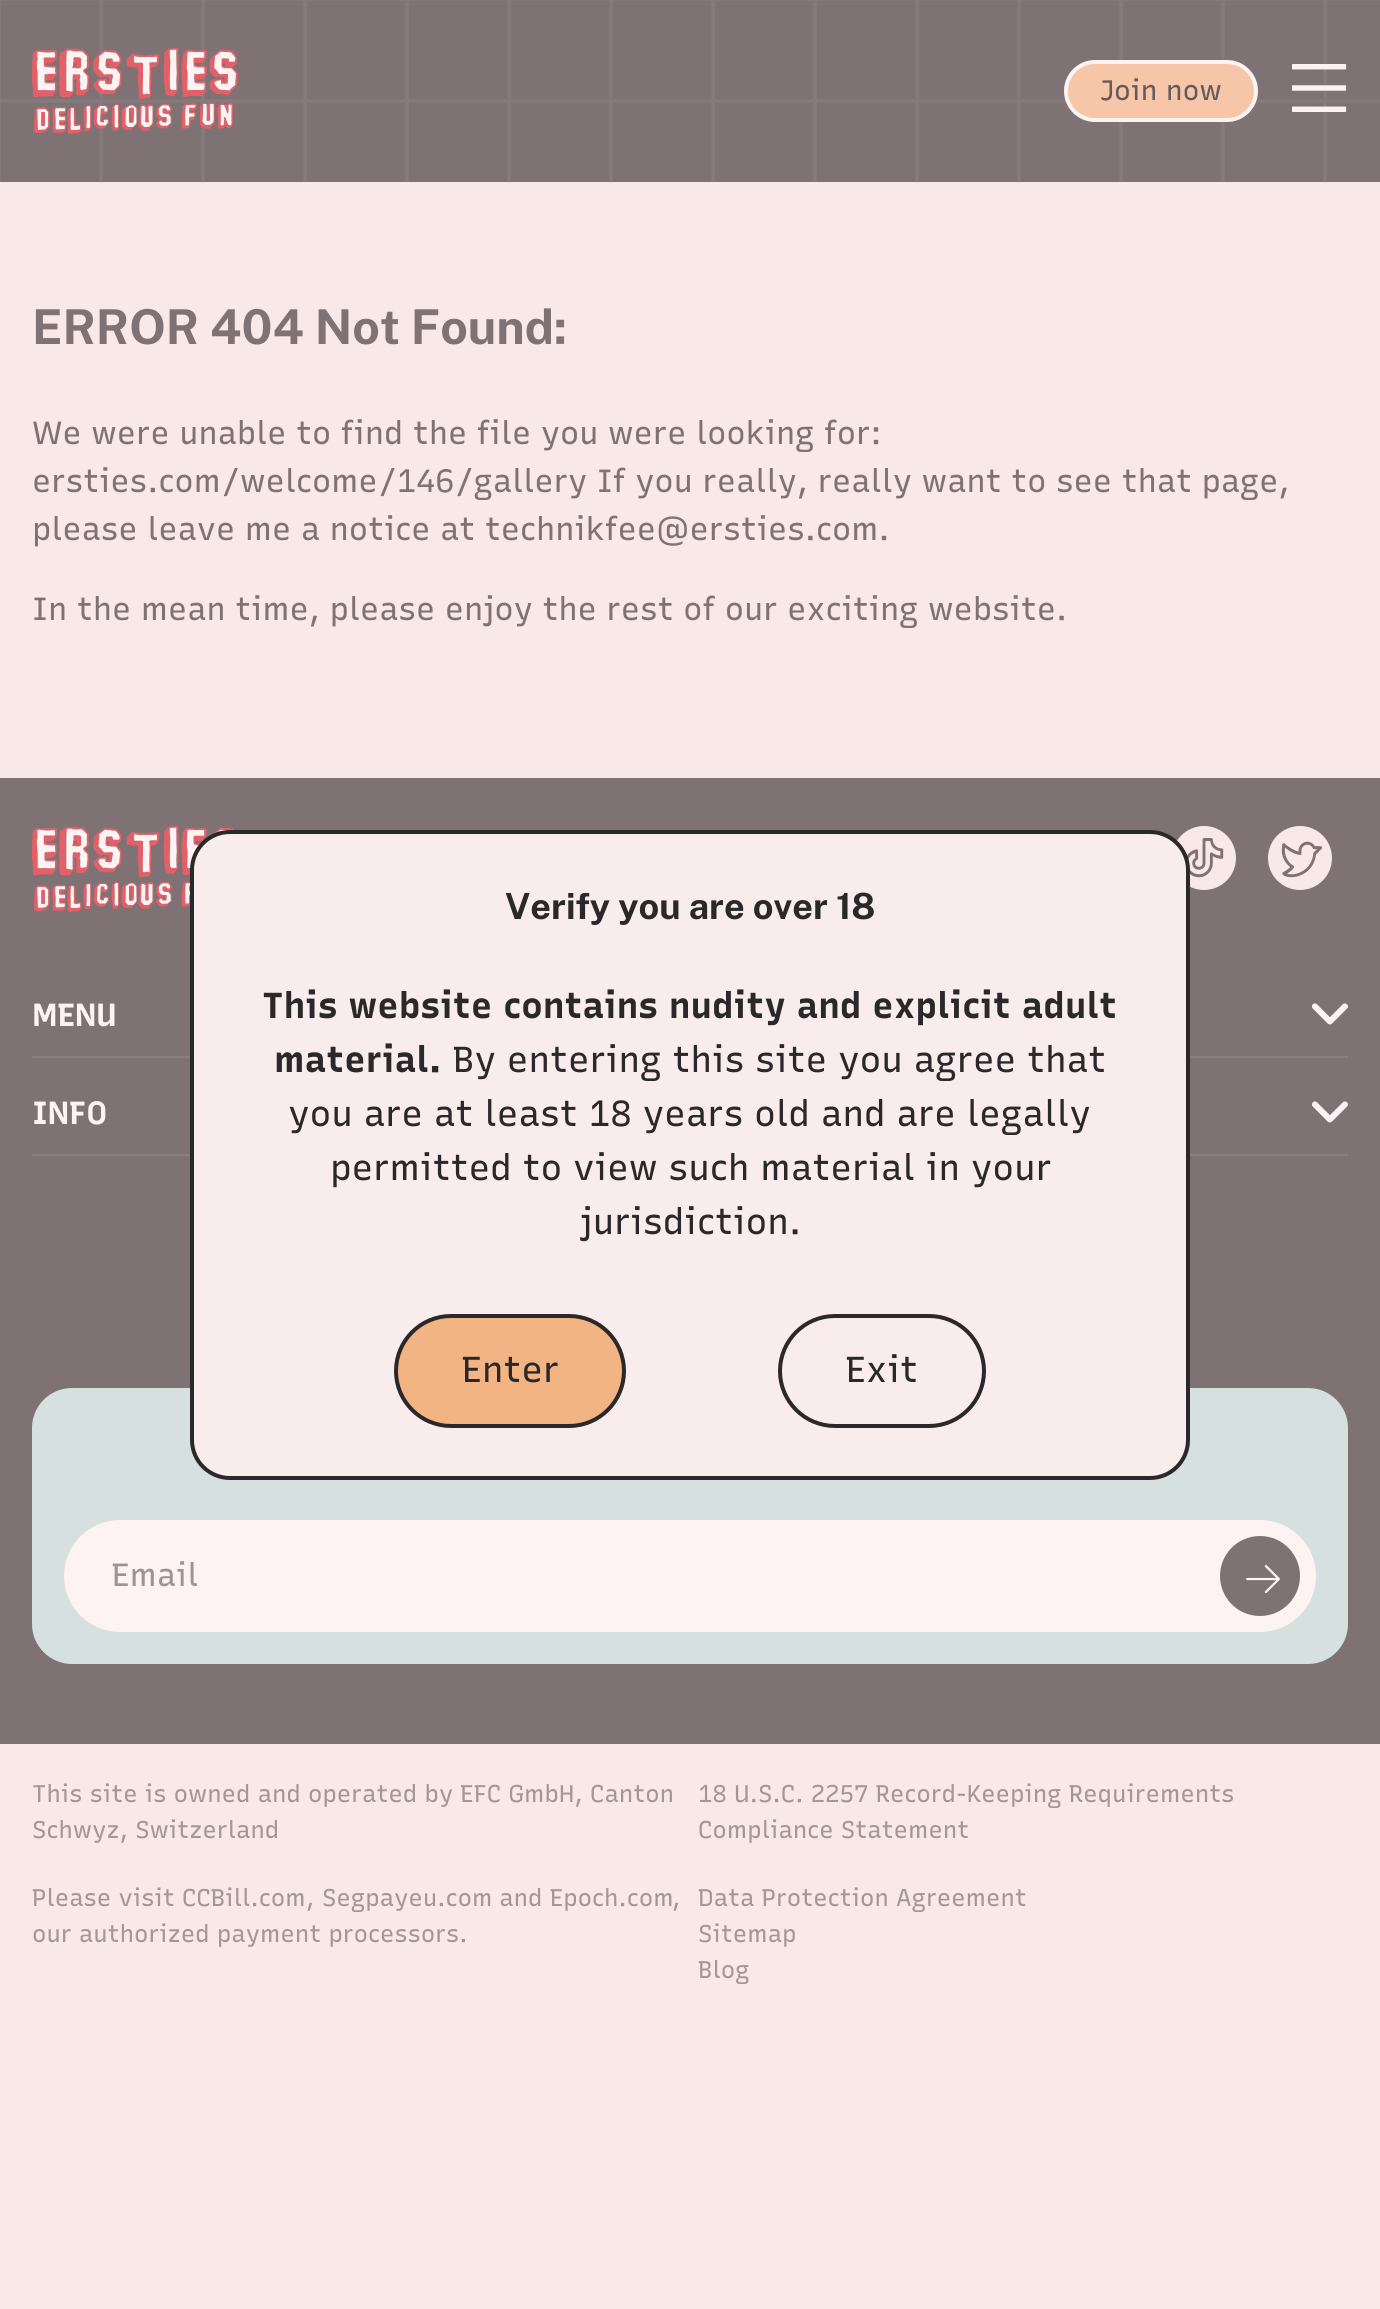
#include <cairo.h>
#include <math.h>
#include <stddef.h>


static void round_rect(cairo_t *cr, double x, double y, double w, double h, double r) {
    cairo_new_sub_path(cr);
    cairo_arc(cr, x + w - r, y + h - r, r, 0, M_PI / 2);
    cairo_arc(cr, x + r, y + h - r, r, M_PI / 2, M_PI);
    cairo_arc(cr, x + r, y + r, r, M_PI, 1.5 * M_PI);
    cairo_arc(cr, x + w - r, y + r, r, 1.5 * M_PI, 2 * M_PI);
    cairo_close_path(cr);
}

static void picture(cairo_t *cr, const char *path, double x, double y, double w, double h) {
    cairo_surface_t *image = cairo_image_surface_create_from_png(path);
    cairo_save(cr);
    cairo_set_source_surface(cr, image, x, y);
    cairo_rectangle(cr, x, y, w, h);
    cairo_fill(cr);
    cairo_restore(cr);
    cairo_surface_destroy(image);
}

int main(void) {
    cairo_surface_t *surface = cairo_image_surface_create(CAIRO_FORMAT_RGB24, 1380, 2309);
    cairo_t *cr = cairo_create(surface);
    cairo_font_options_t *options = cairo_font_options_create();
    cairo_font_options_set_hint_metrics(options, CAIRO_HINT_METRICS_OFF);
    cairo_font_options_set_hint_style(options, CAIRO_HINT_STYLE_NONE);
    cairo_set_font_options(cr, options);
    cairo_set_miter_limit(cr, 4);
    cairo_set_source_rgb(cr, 0.976, 0.91, 0.91);
    cairo_paint(cr);
    cairo_set_source_rgb(cr, 0.494, 0.447, 0.455);
    cairo_rectangle(cr, 0, 0, 1380, 182);
    cairo_fill(cr);
    picture(cr, "img1.png", 0, 0, 1380, 182);
    picture(cr, "img2.png", 32, 48, 206, 86);
    cairo_set_source_rgb(cr, 0.965, 0.776, 0.663);
    round_rect(cr, 1066, 62, 190, 58, 29);
    cairo_fill_preserve(cr);
    cairo_set_source_rgb(cr, 0.992, 0.953, 0.953);
    cairo_set_line_width(cr, 4);
    cairo_stroke(cr);
    picture(cr, "img3.png", 1101, 78, 120, 23);
    picture(cr, "img4.png", 1292, 64, 55, 48);
    cairo_select_font_face(cr, "Public Sans", CAIRO_FONT_SLANT_NORMAL, CAIRO_FONT_WEIGHT_BOLD);
    cairo_set_font_size(cr, 48);
    cairo_set_source_rgb(cr, 0.494, 0.447, 0.455);
    cairo_move_to(cr, 32, 344);
    cairo_show_text(cr, "ERROR 404 Not Found:");
    picture(cr, "img5.png", 33, 419, 846, 33);
    picture(cr, "img6.png", 34, 467, 1253, 33);
    picture(cr, "img7.png", 35, 515, 852, 32);
    picture(cr, "img8.png", 34, 595, 1030, 33);
    cairo_rectangle(cr, 0, 778, 1380, 966);
    cairo_fill(cr);
    picture(cr, "img9.png", 32, 826, 202, 86);
    cairo_set_source_rgb(cr, 0.976, 0.91, 0.91);
    cairo_arc(cr, 1204, 858, 32, 0, 2 * M_PI);
    cairo_fill(cr);
    picture(cr, "img10.png", 1184, 838, 40, 40);
    cairo_arc(cr, 1300, 858, 32, 0, 2 * M_PI);
    cairo_fill(cr);
    picture(cr, "img11.png", 1281, 841, 42, 37);
    cairo_set_source_rgb(cr, 0.541, 0.498, 0.502);
    cairo_rectangle(cr, 32, 1056, 1316, 2);
    cairo_fill(cr);
    picture(cr, "img12.png", 34, 1003, 81, 24);
    picture(cr, "img13.png", 1311, 1003, 37, 22);
    cairo_rectangle(cr, 32, 1154, 1316, 2);
    cairo_fill(cr);
    picture(cr, "img14.png", 34, 1101, 72, 24);
    picture(cr, "img13.png", 1311, 1101, 37, 22);
    cairo_set_source_rgb(cr, 0.835, 0.878, 0.875);
    round_rect(cr, 32, 1388, 1316, 276, 40);
    cairo_fill(cr);
    cairo_set_source_rgb(cr, 0.992, 0.953, 0.953);
    round_rect(cr, 64, 1520, 1252, 112, 56);
    cairo_fill(cr);
    picture(cr, "img15.png", 112, 1561, 85, 26);
    cairo_set_source_rgb(cr, 0.494, 0.447, 0.455);
    cairo_arc(cr, 1260, 1576, 38, 0, 2 * M_PI);
    cairo_fill_preserve(cr);
    cairo_stroke(cr);
    picture(cr, "img16.png", 1246, 1565, 34, 29);
    picture(cr, "img17.png", 33, 1783, 639, 24);
    picture(cr, "img18.png", 33, 1819, 244, 24);
    picture(cr, "img19.png", 700, 1783, 533, 25);
    picture(cr, "img20.png", 699, 1819, 269, 24);
    picture(cr, "img21.png", 32, 1887, 142, 20);
    picture(cr, "img22.png", 183, 1887, 121, 20);
    picture(cr, "img23.png", 307, 1902, 6, 9);
    picture(cr, "img24.png", 323, 1888, 168, 24);
    picture(cr, "img25.png", 500, 1888, 41, 19);
    picture(cr, "img26.png", 550, 1888, 122, 23);
    picture(cr, "img23.png", 673, 1902, 6, 9);
    picture(cr, "img27.png", 33, 1923, 432, 24);
    picture(cr, "img28.png", 698, 1887, 328, 25);
    picture(cr, "img29.png", 699, 1923, 96, 24);
    picture(cr, "img30.png", 698, 1960, 51, 24);
    cairo_set_source_rgb(cr, 0.973, 0.925, 0.925);
    round_rect(cr, 192, 832, 996, 646, 38);
    cairo_fill_preserve(cr);
    cairo_set_source_rgb(cr, 0.169, 0.157, 0.169);
    cairo_stroke(cr);
    cairo_set_font_size(cr, 36);
    cairo_move_to(cr, 505, 919);
    cairo_show_text(cr, "Verify you are over 18");
    picture(cr, "img31.png", 263, 989, 852, 37);
    picture(cr, "img32.png", 276, 1043, 163, 30);
    picture(cr, "img33.png", 453, 1044, 651, 37);
    picture(cr, "img34.png", 289, 1099, 801, 36);
    picture(cr, "img35.png", 333, 1152, 718, 36);
    picture(cr, "img36.png", 580, 1206, 218, 36);
    cairo_set_source_rgb(cr, 0.953, 0.706, 0.514);
    round_rect(cr, 396, 1316, 228, 110, 55);
    cairo_fill_preserve(cr);
    cairo_set_source_rgb(cr, 0.169, 0.157, 0.169);
    cairo_stroke(cr);
    picture(cr, "img37.png", 462, 1356, 96, 27);
    round_rect(cr, 780, 1316, 204, 110, 55);
    cairo_stroke(cr);
    picture(cr, "img38.png", 846, 1354, 70, 29);
    cairo_surface_write_to_png(surface, "page.png");
    cairo_font_options_destroy(options);
    cairo_destroy(cr);
    cairo_surface_destroy(surface);
    return 0;
}
